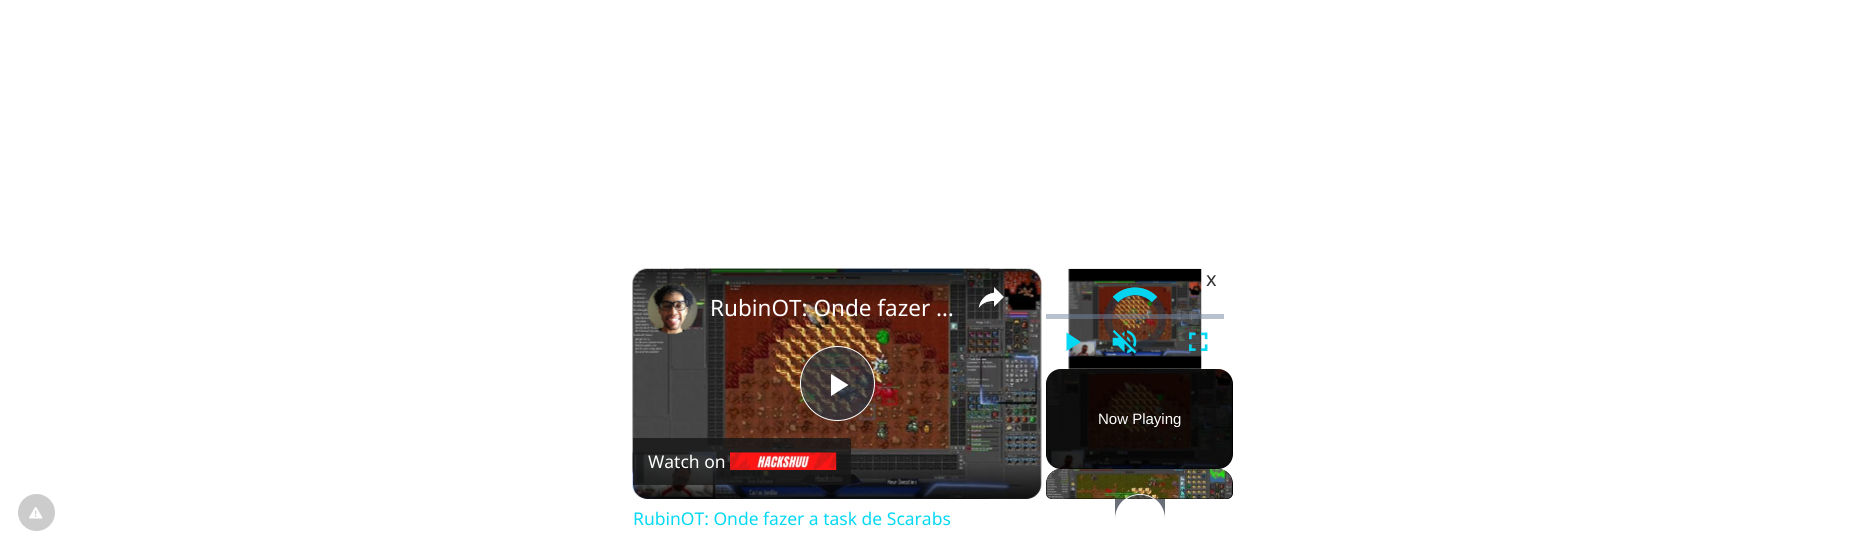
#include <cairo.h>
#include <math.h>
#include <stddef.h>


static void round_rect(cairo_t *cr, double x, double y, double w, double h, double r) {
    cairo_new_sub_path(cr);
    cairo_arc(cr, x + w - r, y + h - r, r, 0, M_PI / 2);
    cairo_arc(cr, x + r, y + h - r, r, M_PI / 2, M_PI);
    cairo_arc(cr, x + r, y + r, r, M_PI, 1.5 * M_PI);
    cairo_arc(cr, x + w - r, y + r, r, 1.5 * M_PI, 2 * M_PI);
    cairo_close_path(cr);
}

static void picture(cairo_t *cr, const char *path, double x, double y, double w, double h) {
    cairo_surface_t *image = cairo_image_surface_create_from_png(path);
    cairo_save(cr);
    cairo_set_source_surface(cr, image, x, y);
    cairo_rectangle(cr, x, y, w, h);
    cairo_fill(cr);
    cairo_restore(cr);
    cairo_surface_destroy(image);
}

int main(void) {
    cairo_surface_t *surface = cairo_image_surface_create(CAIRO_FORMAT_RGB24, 1864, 548);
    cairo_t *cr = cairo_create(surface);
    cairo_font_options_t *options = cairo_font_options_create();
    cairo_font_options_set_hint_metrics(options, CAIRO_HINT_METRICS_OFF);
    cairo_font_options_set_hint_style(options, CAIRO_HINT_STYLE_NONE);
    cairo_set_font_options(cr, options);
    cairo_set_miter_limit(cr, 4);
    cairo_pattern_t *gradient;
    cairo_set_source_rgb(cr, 1, 1, 1);
    cairo_paint(cr);
    cairo_set_source_rgb(cr, 0.8, 0.8, 0.8);
    cairo_arc(cr, 36.5, 512.5, 18.5, 0, 2 * M_PI);
    cairo_fill(cr);
    picture(cr, "img1.png", 29, 507, 14, 12);
    picture(cr, "img3.png", 683, 268, 308, 231);
    picture(cr, "img2.png", 632, 268, 410, 231);
    cairo_set_source_rgba(cr, 0.169, 0.2, 0.247, 0.7);
    cairo_arc(cr, 837.5, 383.5, 37, 0, 2 * M_PI);
    cairo_fill_preserve(cr);
    cairo_set_source_rgb(cr, 1, 1, 1);
    cairo_set_line_width(cr, 1);
    cairo_stroke(cr);
    cairo_new_path(cr);
    cairo_move_to(cr, 831, 374);
    cairo_line_to(cr, 831, 396);
    cairo_line_to(cr, 848.5, 385);
    cairo_close_path(cr);
    cairo_fill(cr);
    gradient = cairo_pattern_create_linear(837, 269, 837, 499);
    cairo_pattern_add_color_stop_rgba(gradient, 0, 0, 0, 0, 0.6);
    cairo_pattern_add_color_stop_rgba(gradient, 0.16, 0, 0, 0, 0);
    cairo_pattern_add_color_stop_rgba(gradient, 0.84, 0, 0, 0, 0);
    cairo_pattern_add_color_stop_rgba(gradient, 1, 0, 0, 0, 0.8);
    cairo_set_source(cr, gradient);
    cairo_pattern_destroy(gradient);
    round_rect(cr, 633, 269, 408, 230, 15);
    cairo_fill(cr);
    picture(cr, "img4.png", 647, 283, 51, 51);
    cairo_select_font_face(cr, "Noto Sans", CAIRO_FONT_SLANT_NORMAL, CAIRO_FONT_WEIGHT_NORMAL);
    cairo_set_font_size(cr, 22.5);
    cairo_set_source_rgb(cr, 1, 1, 1);
    cairo_move_to(cr, 710, 316);
    cairo_show_text(cr, "RubinOT: Onde fazer …");
    picture(cr, "img5.png", 978, 286, 27, 22);
    cairo_set_source_rgba(cr, 0.09, 0.09, 0.09, 0.8);
    cairo_new_path(cr);
    cairo_move_to(cr, 633, 438);
    cairo_line_to(cr, 848.5, 438);
    cairo_curve_to(cr, 850, 438, 851, 439, 851, 440.5);
    cairo_line_to(cr, 851, 482.5);
    cairo_curve_to(cr, 851, 484, 850, 485, 848.5, 485);
    cairo_line_to(cr, 633, 485);
    cairo_close_path(cr);
    cairo_fill(cr);
    cairo_set_font_size(cr, 17.5);
    cairo_set_source_rgb(cr, 1, 1, 1);
    cairo_move_to(cr, 648, 468);
    cairo_show_text(cr, "Watch on");
    picture(cr, "img6.png", 730, 452, 107, 18);
    picture(cr, "img7.png", 1068, 268, 134, 101);
    cairo_arc(cr, 1135, 319, 27, 0, 2 * M_PI);
    cairo_set_source_rgba(cr, 0.169, 0.2, 0.247, 0.59);
    cairo_set_line_width(cr, 8);
    cairo_stroke(cr);
    cairo_new_path(cr);
    cairo_move_to(cr, 1115.5, 299.5);
    cairo_curve_to(cr, 1126, 288.5, 1144, 288.5, 1154.5, 299.5);
    cairo_set_source_rgba(cr, 0.02, 0.847, 0.953, 0.85);
    cairo_set_line_width(cr, 7.5);
    cairo_stroke(cr);
    cairo_new_path(cr);
    cairo_move_to(cr, 1115.5, 299.5);
    cairo_curve_to(cr, 1126, 288.5, 1144, 288.5, 1154.5, 299.5);
    cairo_stroke(cr);
    cairo_set_source_rgba(cr, 0.451, 0.522, 0.624, 0.5);
    cairo_rectangle(cr, 1046, 314, 178, 5);
    cairo_fill(cr);
    cairo_set_source_rgb(cr, 0.02, 0.847, 0.953);
    cairo_new_path(cr);
    cairo_move_to(cr, 1066.5, 332.5);
    cairo_line_to(cr, 1066.5, 351);
    cairo_line_to(cr, 1081, 342);
    cairo_close_path(cr);
    cairo_fill(cr);
    picture(cr, "img8.png", 1112, 330, 25, 24);
    picture(cr, "img9.png", 1189, 332, 19, 19);
    cairo_set_font_size(cr, 20);
    cairo_set_source_rgb(cr, 0.2, 0.2, 0.2);
    cairo_move_to(cr, 1206, 286);
    cairo_show_text(cr, "x");
    cairo_set_source_rgb(cr, 0, 0, 0);
    round_rect(cr, 1046, 369, 187, 100, 15);
    cairo_fill(cr);
    picture(cr, "img10.png", 1046, 369, 186, 100);
    cairo_select_font_face(cr, "Liberation Sans", CAIRO_FONT_SLANT_NORMAL, CAIRO_FONT_WEIGHT_NORMAL);
    cairo_set_font_size(cr, 15);
    cairo_set_source_rgb(cr, 1, 1, 1);
    cairo_move_to(cr, 1098, 424);
    cairo_show_text(cr, "Now Playing");
    cairo_save(cr);
    round_rect(cr, 1041, 269, 192, 230, 6);
    cairo_clip(cr);
    cairo_set_source_rgb(cr, 0, 0, 0);
    cairo_new_path(cr);
    cairo_move_to(cr, 1061, 469);
    cairo_line_to(cr, 1218, 469);
    cairo_curve_to(cr, 1226.5, 469, 1233, 475.5, 1233, 484);
    cairo_line_to(cr, 1233, 493);
    cairo_curve_to(cr, 1233, 496.5, 1230.5, 499, 1227, 499);
    cairo_line_to(cr, 1052, 499);
    cairo_curve_to(cr, 1048.5, 499, 1046, 496.5, 1046, 493);
    cairo_line_to(cr, 1046, 484);
    cairo_curve_to(cr, 1046, 475.5, 1052.5, 469, 1061, 469);
    cairo_close_path(cr);
    cairo_fill(cr);
    cairo_restore(cr);
    picture(cr, "img11.png", 1046, 469, 187, 30);
    cairo_set_source_rgba(cr, 0.169, 0.2, 0.247, 0.7);
    cairo_new_path(cr);
    cairo_move_to(cr, 1140, 494);
    cairo_curve_to(cr, 1154, 494, 1165, 505, 1165, 519);
    cairo_line_to(cr, 1165, 499);
    cairo_line_to(cr, 1115, 499);
    cairo_line_to(cr, 1115, 519);
    cairo_curve_to(cr, 1115, 505, 1126, 494, 1140, 494);
    cairo_close_path(cr);
    cairo_fill(cr);
    cairo_set_source_rgb(cr, 1, 1, 1);
    cairo_new_path(cr);
    cairo_move_to(cr, 1140, 494);
    cairo_curve_to(cr, 1145.5, 494, 1151, 496, 1155, 499);
    cairo_line_to(cr, 1153.5, 499);
    cairo_curve_to(cr, 1145.5, 493.5, 1134.5, 493.5, 1126.5, 499);
    cairo_line_to(cr, 1125, 499);
    cairo_curve_to(cr, 1129, 496, 1134.5, 494, 1140, 494);
    cairo_close_path(cr);
    cairo_fill(cr);
    cairo_select_font_face(cr, "Noto Sans", CAIRO_FONT_SLANT_NORMAL, CAIRO_FONT_WEIGHT_NORMAL);
    cairo_set_font_size(cr, 17.5);
    cairo_set_source_rgb(cr, 0.02, 0.847, 0.953);
    cairo_move_to(cr, 633, 525);
    cairo_show_text(cr, "RubinOT: Onde fazer a task de Scarabs");
    cairo_surface_write_to_png(surface, "page.png");
    cairo_font_options_destroy(options);
    cairo_destroy(cr);
    cairo_surface_destroy(surface);
    return 0;
}
